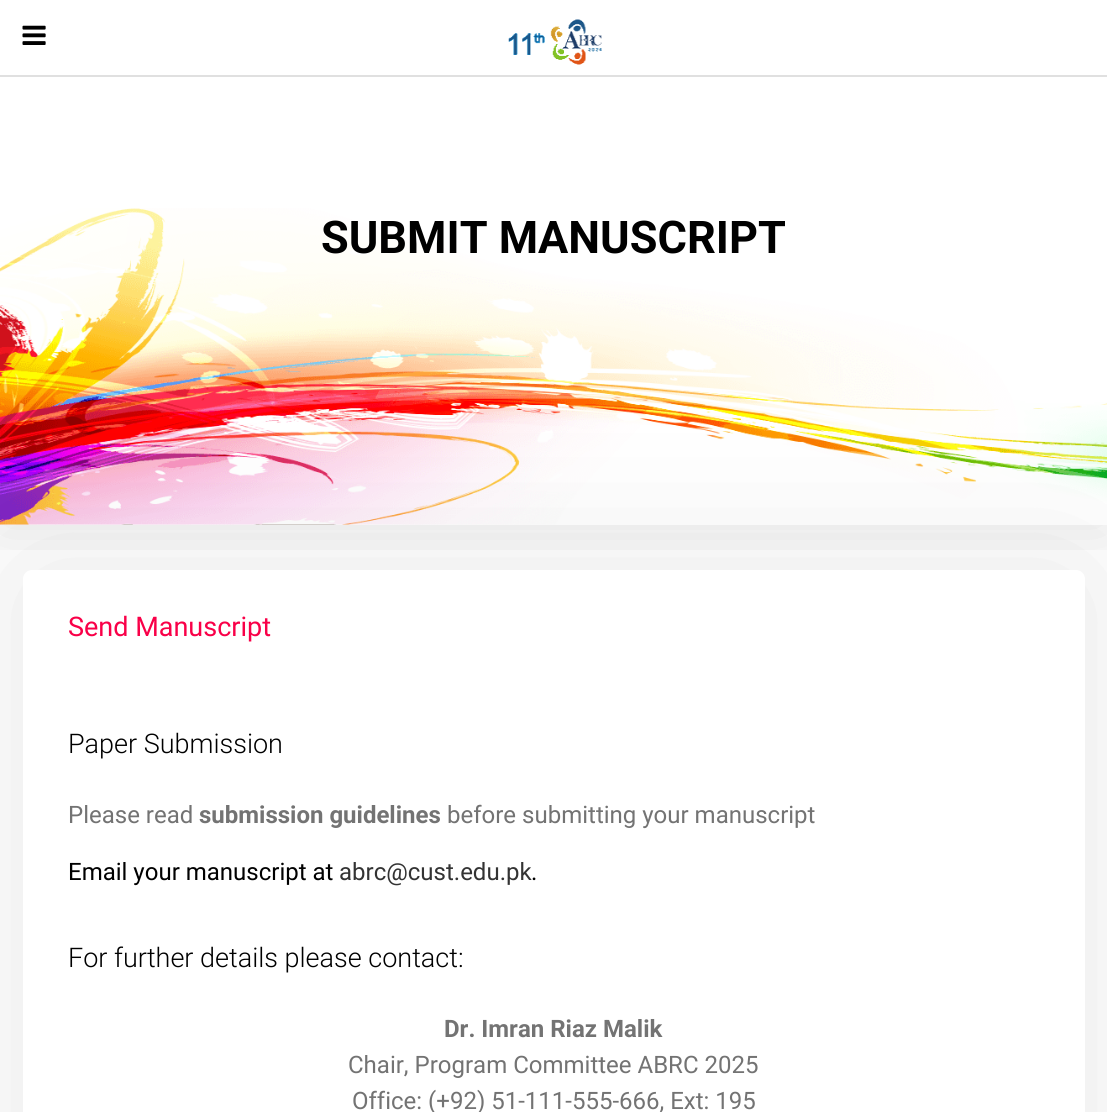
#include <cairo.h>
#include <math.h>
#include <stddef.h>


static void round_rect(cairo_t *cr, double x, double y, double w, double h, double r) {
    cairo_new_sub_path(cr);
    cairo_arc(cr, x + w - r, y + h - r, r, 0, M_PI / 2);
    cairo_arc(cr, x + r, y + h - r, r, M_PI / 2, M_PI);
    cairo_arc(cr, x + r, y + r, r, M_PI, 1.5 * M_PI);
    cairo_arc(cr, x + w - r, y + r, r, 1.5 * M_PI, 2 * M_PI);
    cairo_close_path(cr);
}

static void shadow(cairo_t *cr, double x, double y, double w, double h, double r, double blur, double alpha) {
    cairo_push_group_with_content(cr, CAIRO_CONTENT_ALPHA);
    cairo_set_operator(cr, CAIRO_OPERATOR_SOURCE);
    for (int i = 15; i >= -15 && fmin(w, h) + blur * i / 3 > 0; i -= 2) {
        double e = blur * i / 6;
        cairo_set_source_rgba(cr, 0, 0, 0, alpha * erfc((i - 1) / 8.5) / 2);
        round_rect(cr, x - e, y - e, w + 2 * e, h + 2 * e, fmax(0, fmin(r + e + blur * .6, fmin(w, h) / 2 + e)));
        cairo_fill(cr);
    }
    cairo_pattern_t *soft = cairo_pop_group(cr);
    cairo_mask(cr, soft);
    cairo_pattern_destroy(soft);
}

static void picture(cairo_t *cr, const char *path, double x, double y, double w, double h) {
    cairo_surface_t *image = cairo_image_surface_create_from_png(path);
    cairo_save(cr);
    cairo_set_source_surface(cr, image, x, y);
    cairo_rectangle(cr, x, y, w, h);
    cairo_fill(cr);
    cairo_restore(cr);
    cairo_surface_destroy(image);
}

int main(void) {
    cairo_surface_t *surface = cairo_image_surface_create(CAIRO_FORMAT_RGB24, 1107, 1112);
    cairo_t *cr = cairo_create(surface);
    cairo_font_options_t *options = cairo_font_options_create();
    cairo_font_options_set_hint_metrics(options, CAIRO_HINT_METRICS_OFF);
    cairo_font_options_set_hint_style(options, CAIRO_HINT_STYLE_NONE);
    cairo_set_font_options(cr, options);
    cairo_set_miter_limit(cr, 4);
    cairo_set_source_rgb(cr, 1, 1, 1);
    cairo_paint(cr);
    cairo_save(cr);
    cairo_rectangle(cr, 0, 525, 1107, 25);
    cairo_clip(cr);
    cairo_set_source_rgb(cr, 0, 0, 0);
    shadow(cr, 0, 0, 1107, 525, 0, 30, 0.1);
    cairo_restore(cr);
    cairo_set_source_rgb(cr, 0.878, 0.878, 0.878);
    cairo_rectangle(cr, 0, 75, 1107, 2);
    cairo_fill(cr);
    picture(cr, "img1.png", 22, 25, 24, 20);
    picture(cr, "img2.png", 508, 19, 94, 46);
    picture(cr, "img3.png", 0, 208, 1107, 317);
    cairo_select_font_face(cr, "Roboto", CAIRO_FONT_SLANT_NORMAL, CAIRO_FONT_WEIGHT_BOLD);
    cairo_set_font_size(cr, 45);
    cairo_set_source_rgb(cr, 0, 0, 0);
    cairo_move_to(cr, 321, 253);
    cairo_show_text(cr, "SUBMIT MANUSCRIPT");
    cairo_set_source_rgb(cr, 0, 0, 0);
    shadow(cr, 23, 570, 1062, 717, 9, 75, 0.1);
    cairo_set_source_rgb(cr, 1, 1, 1);
    round_rect(cr, 23, 570, 1062, 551, 9);
    cairo_fill(cr);
    cairo_select_font_face(cr, "Roboto", CAIRO_FONT_SLANT_NORMAL, CAIRO_FONT_WEIGHT_NORMAL);
    cairo_set_font_size(cr, 27);
    cairo_set_source_rgb(cr, 0.976, 0, 0.282);
    cairo_move_to(cr, 68, 636);
    cairo_show_text(cr, "Send Manuscript");
    cairo_select_font_face(cr, "Roboto Light", CAIRO_FONT_SLANT_NORMAL, CAIRO_FONT_WEIGHT_NORMAL);
    cairo_set_source_rgb(cr, 0, 0, 0);
    cairo_move_to(cr, 68, 753);
    cairo_show_text(cr, "Paper Submission");
    cairo_select_font_face(cr, "Roboto", CAIRO_FONT_SLANT_NORMAL, CAIRO_FONT_WEIGHT_NORMAL);
    cairo_set_font_size(cr, 24);
    cairo_set_source_rgb(cr, 0.451, 0.451, 0.451);
    cairo_move_to(cr, 68, 823);
    cairo_show_text(cr, "Please read");
    cairo_select_font_face(cr, "Roboto", CAIRO_FONT_SLANT_NORMAL, CAIRO_FONT_WEIGHT_BOLD);
    cairo_move_to(cr, 199, 823);
    cairo_show_text(cr, "submission guidelines");
    cairo_select_font_face(cr, "Roboto", CAIRO_FONT_SLANT_NORMAL, CAIRO_FONT_WEIGHT_NORMAL);
    cairo_move_to(cr, 447, 823);
    cairo_show_text(cr, "before submitting your manuscript");
    cairo_set_source_rgb(cr, 0, 0, 0);
    cairo_move_to(cr, 68, 880);
    cairo_show_text(cr, "Email your manuscript at");
    cairo_set_source_rgb(cr, 0.2, 0.2, 0.2);
    cairo_move_to(cr, 339, 880);
    cairo_show_text(cr, "abrc@cust.edu.pk");
    cairo_set_source_rgb(cr, 0, 0, 0);
    cairo_move_to(cr, 531, 880);
    cairo_show_text(cr, ".");
    cairo_select_font_face(cr, "Roboto Light", CAIRO_FONT_SLANT_NORMAL, CAIRO_FONT_WEIGHT_NORMAL);
    cairo_set_font_size(cr, 27);
    cairo_move_to(cr, 68, 967);
    cairo_show_text(cr, "For further details please contact:");
    cairo_select_font_face(cr, "Roboto", CAIRO_FONT_SLANT_NORMAL, CAIRO_FONT_WEIGHT_BOLD);
    cairo_set_font_size(cr, 24);
    cairo_set_source_rgb(cr, 0.451, 0.451, 0.451);
    cairo_move_to(cr, 444, 1037);
    cairo_show_text(cr, "Dr. Imran Riaz Malik");
    cairo_select_font_face(cr, "Roboto", CAIRO_FONT_SLANT_NORMAL, CAIRO_FONT_WEIGHT_NORMAL);
    cairo_move_to(cr, 348, 1073);
    cairo_show_text(cr, "Chair, Program Committee ABRC 2025");
    cairo_move_to(cr, 352, 1109);
    cairo_show_text(cr, "Office: (+92) 51-111-555-666, Ext: 195");
    cairo_surface_write_to_png(surface, "page.png");
    cairo_font_options_destroy(options);
    cairo_destroy(cr);
    cairo_surface_destroy(surface);
    return 0;
}
